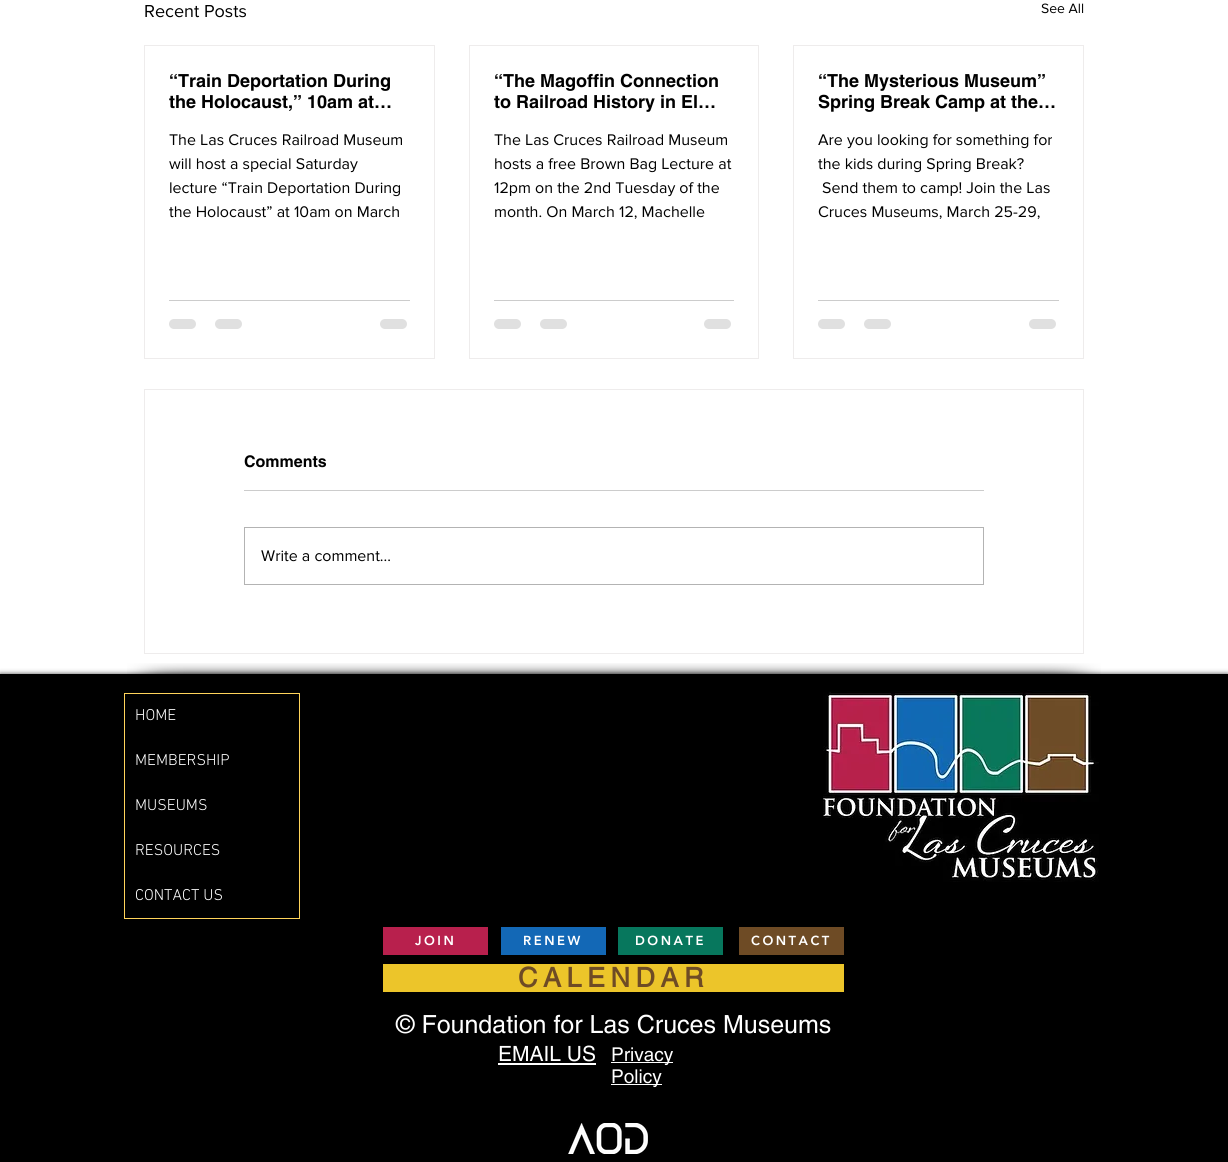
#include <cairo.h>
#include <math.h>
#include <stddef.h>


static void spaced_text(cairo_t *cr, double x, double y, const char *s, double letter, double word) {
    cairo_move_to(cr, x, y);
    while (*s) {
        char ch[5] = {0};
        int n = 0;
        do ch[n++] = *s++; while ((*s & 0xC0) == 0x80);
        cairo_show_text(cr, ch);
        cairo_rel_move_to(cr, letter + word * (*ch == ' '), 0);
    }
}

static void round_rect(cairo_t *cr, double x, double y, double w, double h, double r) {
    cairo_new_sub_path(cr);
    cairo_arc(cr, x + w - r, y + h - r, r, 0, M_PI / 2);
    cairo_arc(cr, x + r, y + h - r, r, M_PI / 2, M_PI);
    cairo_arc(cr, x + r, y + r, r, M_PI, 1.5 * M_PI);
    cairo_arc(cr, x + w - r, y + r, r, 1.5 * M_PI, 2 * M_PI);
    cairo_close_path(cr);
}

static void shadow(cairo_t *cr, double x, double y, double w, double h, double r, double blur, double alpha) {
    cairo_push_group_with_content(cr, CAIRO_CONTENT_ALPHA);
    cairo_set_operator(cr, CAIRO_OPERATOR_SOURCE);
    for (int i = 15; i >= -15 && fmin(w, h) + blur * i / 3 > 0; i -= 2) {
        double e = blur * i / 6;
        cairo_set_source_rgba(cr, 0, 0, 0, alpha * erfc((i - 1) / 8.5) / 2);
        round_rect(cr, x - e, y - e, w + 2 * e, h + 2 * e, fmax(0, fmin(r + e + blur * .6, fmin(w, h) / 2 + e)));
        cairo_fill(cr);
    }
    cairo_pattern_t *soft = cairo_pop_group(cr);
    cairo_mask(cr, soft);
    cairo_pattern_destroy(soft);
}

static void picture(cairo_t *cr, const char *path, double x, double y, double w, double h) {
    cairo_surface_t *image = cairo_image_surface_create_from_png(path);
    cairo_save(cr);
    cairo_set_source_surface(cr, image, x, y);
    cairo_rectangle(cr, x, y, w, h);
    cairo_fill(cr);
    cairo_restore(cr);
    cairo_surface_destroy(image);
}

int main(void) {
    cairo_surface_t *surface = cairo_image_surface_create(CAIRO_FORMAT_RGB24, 1228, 1162);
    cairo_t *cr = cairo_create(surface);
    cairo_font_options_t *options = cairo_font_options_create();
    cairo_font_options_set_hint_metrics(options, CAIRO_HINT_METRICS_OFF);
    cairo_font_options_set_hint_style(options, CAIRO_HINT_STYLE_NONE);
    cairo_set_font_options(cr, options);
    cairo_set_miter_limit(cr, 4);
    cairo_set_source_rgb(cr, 1, 1, 1);
    cairo_paint(cr);
    cairo_select_font_face(cr, "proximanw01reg", CAIRO_FONT_SLANT_NORMAL, CAIRO_FONT_WEIGHT_NORMAL);
    cairo_set_font_size(cr, 18);
    cairo_set_source_rgb(cr, 0, 0, 0);
    cairo_move_to(cr, 144, 17);
    cairo_show_text(cr, "Recent Posts");
    cairo_set_font_size(cr, 14);
    cairo_move_to(cr, 1041, 13);
    cairo_show_text(cr, "See All");
    cairo_rectangle(cr, 144.5, 45.5, 290, 313);
    cairo_set_source_rgb(cr, 0.933, 0.925, 0.925);
    cairo_set_line_width(cr, 1);
    cairo_stroke(cr);
    cairo_select_font_face(cr, "helvetica", CAIRO_FONT_SLANT_NORMAL, CAIRO_FONT_WEIGHT_BOLD);
    cairo_set_font_size(cr, 18);
    cairo_set_source_rgb(cr, 0, 0, 0);
    cairo_move_to(cr, 169, 87);
    cairo_show_text(cr, "“Train Deportation During");
    cairo_move_to(cr, 169, 108);
    cairo_show_text(cr, "the Holocaust,” 10am at…");
    cairo_select_font_face(cr, "proximanw01reg", CAIRO_FONT_SLANT_NORMAL, CAIRO_FONT_WEIGHT_NORMAL);
    cairo_set_font_size(cr, 16);
    cairo_move_to(cr, 169, 145);
    cairo_show_text(cr, "The Las Cruces Railroad Museum");
    cairo_move_to(cr, 169, 169);
    cairo_show_text(cr, "will host a special Saturday");
    cairo_move_to(cr, 169, 193);
    cairo_show_text(cr, "lecture “Train Deportation During");
    cairo_move_to(cr, 169, 217);
    cairo_show_text(cr, "the Holocaust” at 10am on March");
    cairo_set_source_rgb(cr, 0.8, 0.8, 0.8);
    cairo_rectangle(cr, 169, 300, 241, 1);
    cairo_fill(cr);
    cairo_set_source_rgb(cr, 0.878, 0.878, 0.878);
    round_rect(cr, 169, 319, 27, 10, 5);
    cairo_fill(cr);
    round_rect(cr, 215, 319, 27, 10, 5);
    cairo_fill(cr);
    round_rect(cr, 380, 319, 27, 10, 5);
    cairo_fill(cr);
    cairo_rectangle(cr, 469.5, 45.5, 289, 313);
    cairo_set_source_rgb(cr, 0.933, 0.925, 0.925);
    cairo_stroke(cr);
    cairo_select_font_face(cr, "helvetica", CAIRO_FONT_SLANT_NORMAL, CAIRO_FONT_WEIGHT_BOLD);
    cairo_set_font_size(cr, 18);
    cairo_set_source_rgb(cr, 0, 0, 0);
    cairo_move_to(cr, 494, 87);
    cairo_show_text(cr, "“The Magoffin Connection");
    cairo_move_to(cr, 494, 108);
    cairo_show_text(cr, "to Railroad History in El…");
    cairo_select_font_face(cr, "proximanw01reg", CAIRO_FONT_SLANT_NORMAL, CAIRO_FONT_WEIGHT_NORMAL);
    cairo_set_font_size(cr, 16);
    cairo_move_to(cr, 494, 145);
    cairo_show_text(cr, "The Las Cruces Railroad Museum");
    cairo_move_to(cr, 494, 169);
    cairo_show_text(cr, "hosts a free Brown Bag Lecture at");
    cairo_move_to(cr, 494, 193);
    cairo_show_text(cr, "12pm on the 2nd Tuesday of the");
    cairo_move_to(cr, 494, 217);
    cairo_show_text(cr, "month. On March 12, Machelle");
    cairo_set_source_rgb(cr, 0.8, 0.8, 0.8);
    cairo_rectangle(cr, 494, 300, 240, 1);
    cairo_fill(cr);
    cairo_set_source_rgb(cr, 0.878, 0.878, 0.878);
    round_rect(cr, 494, 319, 27, 10, 5);
    cairo_fill(cr);
    round_rect(cr, 540, 319, 27, 10, 5);
    cairo_fill(cr);
    round_rect(cr, 704, 319, 27, 10, 5);
    cairo_fill(cr);
    cairo_rectangle(cr, 793.5, 45.5, 290, 313);
    cairo_set_source_rgb(cr, 0.933, 0.925, 0.925);
    cairo_stroke(cr);
    cairo_select_font_face(cr, "helvetica", CAIRO_FONT_SLANT_NORMAL, CAIRO_FONT_WEIGHT_BOLD);
    cairo_set_font_size(cr, 18);
    cairo_set_source_rgb(cr, 0, 0, 0);
    cairo_move_to(cr, 818, 87);
    cairo_show_text(cr, "“The Mysterious Museum”");
    cairo_move_to(cr, 818, 108);
    cairo_show_text(cr, "Spring Break Camp at the…");
    cairo_select_font_face(cr, "proximanw01reg", CAIRO_FONT_SLANT_NORMAL, CAIRO_FONT_WEIGHT_NORMAL);
    cairo_set_font_size(cr, 16);
    cairo_move_to(cr, 818, 145);
    cairo_show_text(cr, "Are you looking for something for");
    cairo_move_to(cr, 818, 169);
    cairo_show_text(cr, "the kids during Spring Break?");
    cairo_move_to(cr, 822, 193);
    cairo_show_text(cr, "Send them to camp! Join the Las");
    cairo_move_to(cr, 818, 217);
    cairo_show_text(cr, "Cruces Museums, March 25-29,");
    cairo_set_source_rgb(cr, 0.8, 0.8, 0.8);
    cairo_rectangle(cr, 818, 300, 241, 1);
    cairo_fill(cr);
    cairo_set_source_rgb(cr, 0.878, 0.878, 0.878);
    round_rect(cr, 818, 319, 27, 10, 5);
    cairo_fill(cr);
    round_rect(cr, 864, 319, 27, 10, 5);
    cairo_fill(cr);
    round_rect(cr, 1029, 319, 27, 10, 5);
    cairo_fill(cr);
    cairo_rectangle(cr, 144.5, 389.5, 939, 264);
    cairo_set_source_rgb(cr, 0.933, 0.925, 0.925);
    cairo_stroke(cr);
    cairo_select_font_face(cr, "helvetica", CAIRO_FONT_SLANT_NORMAL, CAIRO_FONT_WEIGHT_BOLD);
    cairo_set_source_rgb(cr, 0, 0, 0);
    cairo_move_to(cr, 244, 467);
    cairo_show_text(cr, "Comments");
    cairo_set_source_rgb(cr, 0.8, 0.8, 0.8);
    cairo_rectangle(cr, 244, 490, 740, 1);
    cairo_fill(cr);
    cairo_rectangle(cr, 244.5, 527.5, 739, 57);
    cairo_set_source_rgb(cr, 0.702, 0.702, 0.702);
    cairo_stroke(cr);
    cairo_select_font_face(cr, "proximanw01reg", CAIRO_FONT_SLANT_NORMAL, CAIRO_FONT_WEIGHT_NORMAL);
    cairo_set_source_rgb(cr, 0, 0, 0);
    cairo_move_to(cr, 261, 561);
    cairo_show_text(cr, "Write a comment...");
    cairo_set_source_rgb(cr, 0, 0, 0);
    shadow(cr, 0, 674, 1228, 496, 0, 2.5, 0.7);
    cairo_set_source_rgb(cr, 0, 0, 0);
    cairo_rectangle(cr, 0, 674, 1228, 488);
    cairo_fill(cr);
    picture(cr, "img1.png", 127, 663, 97, 11);
    picture(cr, "img2.png", 224, 663, 780, 11);
    picture(cr, "img3.png", 1004, 663, 97, 11);
    cairo_rectangle(cr, 124.5, 693.5, 175, 225);
    cairo_set_source_rgb(cr, 1, 0.831, 0.353);
    cairo_stroke(cr);
    cairo_select_font_face(cr, "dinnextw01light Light", CAIRO_FONT_SLANT_NORMAL, CAIRO_FONT_WEIGHT_NORMAL);
    cairo_set_source_rgb(cr, 1, 1, 1);
    cairo_move_to(cr, 135, 720);
    cairo_show_text(cr, "HOME");
    cairo_move_to(cr, 135, 765);
    cairo_show_text(cr, "MEMBERSHIP");
    cairo_move_to(cr, 135, 810);
    cairo_show_text(cr, "MUSEUMS");
    cairo_move_to(cr, 135, 855);
    cairo_show_text(cr, "RESOURCES");
    cairo_move_to(cr, 135, 900);
    cairo_show_text(cr, "CONTACT US");
    picture(cr, "img4.png", 823, 690, 276, 192);
    cairo_set_source_rgb(cr, 0.722, 0.125, 0.302);
    cairo_rectangle(cr, 383, 927, 105, 28);
    cairo_fill(cr);
    cairo_select_font_face(cr, "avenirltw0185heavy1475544 Black", CAIRO_FONT_SLANT_NORMAL, CAIRO_FONT_WEIGHT_NORMAL);
    cairo_set_font_size(cr, 13);
    cairo_set_source_rgb(cr, 1, 1, 1);
    spaced_text(cr, 415, 945, "JOIN", 2.5, 0);
    cairo_set_source_rgb(cr, 0.075, 0.408, 0.714);
    cairo_rectangle(cr, 501, 927, 105, 28);
    cairo_fill(cr);
    cairo_set_source_rgb(cr, 1, 1, 1);
    spaced_text(cr, 523, 945, "RENEW", 2.5, 0);
    cairo_set_source_rgb(cr, 0.031, 0.467, 0.365);
    cairo_rectangle(cr, 618, 927, 105, 28);
    cairo_fill(cr);
    cairo_set_source_rgb(cr, 1, 1, 1);
    spaced_text(cr, 635, 945, "DONATE", 2.5, 0);
    cairo_set_source_rgb(cr, 0.431, 0.294, 0.145);
    cairo_rectangle(cr, 739, 927, 105, 28);
    cairo_fill(cr);
    cairo_set_source_rgb(cr, 1, 1, 1);
    spaced_text(cr, 751, 945, "CONTACT", 2.5, 0);
    cairo_set_source_rgb(cr, 0.925, 0.773, 0.165);
    cairo_rectangle(cr, 383, 964, 461, 28);
    cairo_fill(cr);
    cairo_select_font_face(cr, "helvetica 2", CAIRO_FONT_SLANT_NORMAL, CAIRO_FONT_WEIGHT_BOLD);
    cairo_set_font_size(cr, 27);
    cairo_set_source_rgb(cr, 0.431, 0.294, 0.145);
    spaced_text(cr, 518, 987, "CALENDAR", 5.5, 0);
    cairo_select_font_face(cr, "helvetica", CAIRO_FONT_SLANT_NORMAL, CAIRO_FONT_WEIGHT_NORMAL);
    cairo_set_font_size(cr, 25);
    cairo_set_source_rgb(cr, 1, 1, 1);
    cairo_move_to(cr, 396, 1033);
    cairo_show_text(cr, "© Foundation for Las Cruces Museums");
    cairo_set_font_size(cr, 21);
    cairo_move_to(cr, 498, 1061);
    cairo_show_text(cr, "EMAIL US");
    cairo_rectangle(cr, 498, 1063, 98, 2);
    cairo_fill(cr);
    cairo_rectangle(cr, 611, 1062, 62, 1);
    cairo_fill(cr);
    cairo_set_font_size(cr, 19);
    cairo_move_to(cr, 611, 1061);
    cairo_show_text(cr, "Privacy");
    cairo_rectangle(cr, 611, 1084, 51, 1);
    cairo_fill(cr);
    cairo_move_to(cr, 611, 1083);
    cairo_show_text(cr, "Policy");
    picture(cr, "img5.png", 568, 1123, 80, 31);
    cairo_surface_write_to_png(surface, "page.png");
    cairo_font_options_destroy(options);
    cairo_destroy(cr);
    cairo_surface_destroy(surface);
    return 0;
}
